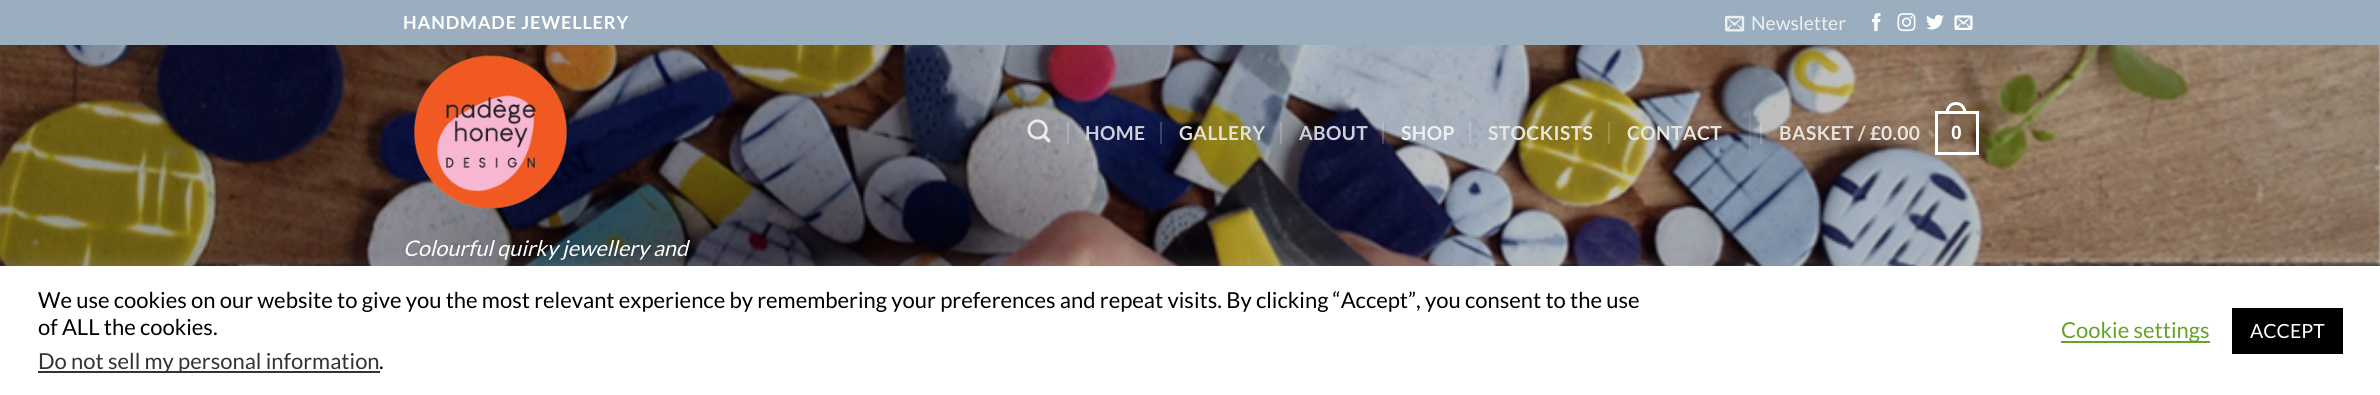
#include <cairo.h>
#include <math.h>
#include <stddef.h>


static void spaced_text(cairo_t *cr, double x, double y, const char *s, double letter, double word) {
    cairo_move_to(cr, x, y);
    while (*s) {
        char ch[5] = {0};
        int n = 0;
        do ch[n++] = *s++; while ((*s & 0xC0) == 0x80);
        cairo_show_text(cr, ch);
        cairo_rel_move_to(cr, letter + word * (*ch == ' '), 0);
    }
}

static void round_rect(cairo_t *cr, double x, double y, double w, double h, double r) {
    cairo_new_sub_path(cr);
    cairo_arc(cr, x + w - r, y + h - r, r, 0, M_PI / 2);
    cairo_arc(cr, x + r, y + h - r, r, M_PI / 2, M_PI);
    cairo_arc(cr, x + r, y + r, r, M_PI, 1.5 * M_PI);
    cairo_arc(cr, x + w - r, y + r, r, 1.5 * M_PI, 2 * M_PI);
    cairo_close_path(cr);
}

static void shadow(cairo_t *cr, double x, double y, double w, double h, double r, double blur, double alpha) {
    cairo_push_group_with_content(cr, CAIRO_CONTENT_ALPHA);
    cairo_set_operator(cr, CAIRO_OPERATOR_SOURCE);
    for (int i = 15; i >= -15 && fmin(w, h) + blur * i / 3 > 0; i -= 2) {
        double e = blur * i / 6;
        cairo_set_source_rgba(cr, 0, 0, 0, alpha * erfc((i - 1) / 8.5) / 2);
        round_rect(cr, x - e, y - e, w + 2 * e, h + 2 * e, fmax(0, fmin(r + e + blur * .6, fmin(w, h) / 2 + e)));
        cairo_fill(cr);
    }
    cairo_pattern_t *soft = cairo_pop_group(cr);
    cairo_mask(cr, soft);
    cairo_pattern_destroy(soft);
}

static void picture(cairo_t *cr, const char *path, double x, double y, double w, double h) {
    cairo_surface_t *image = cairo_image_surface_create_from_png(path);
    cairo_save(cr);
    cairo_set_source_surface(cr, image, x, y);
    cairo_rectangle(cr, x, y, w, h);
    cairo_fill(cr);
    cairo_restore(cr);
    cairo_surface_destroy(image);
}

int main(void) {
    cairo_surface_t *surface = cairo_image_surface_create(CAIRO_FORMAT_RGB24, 2380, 395);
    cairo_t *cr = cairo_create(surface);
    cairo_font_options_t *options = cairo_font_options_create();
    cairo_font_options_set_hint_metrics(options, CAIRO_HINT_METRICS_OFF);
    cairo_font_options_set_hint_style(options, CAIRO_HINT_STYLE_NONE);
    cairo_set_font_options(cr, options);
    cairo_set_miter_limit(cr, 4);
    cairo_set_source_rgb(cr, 1, 1, 1);
    cairo_paint(cr);
    cairo_set_source_rgb(cr, 0.604, 0.682, 0.749);
    cairo_rectangle(cr, 0, 0, 2380, 45);
    cairo_fill(cr);
    cairo_select_font_face(cr, "Lato", CAIRO_FONT_SLANT_NORMAL, CAIRO_FONT_WEIGHT_BOLD);
    cairo_set_font_size(cr, 18);
    cairo_set_source_rgb(cr, 1, 1, 1);
    spaced_text(cr, 403, 29, "HANDMADE JEWELLERY", 0.9, 0);
    picture(cr, "img1.png", 1725, 15, 20, 17);
    cairo_select_font_face(cr, "Lato", CAIRO_FONT_SLANT_NORMAL, CAIRO_FONT_WEIGHT_NORMAL);
    cairo_set_font_size(cr, 19.25);
    cairo_set_source_rgb(cr, 0.929, 0.937, 0.945);
    cairo_move_to(cr, 1751, 30);
    cairo_show_text(cr, "Newsletter");
    picture(cr, "img2.png", 1872, 13, 9, 19);
    picture(cr, "img3.png", 1897, 13, 19, 19);
    picture(cr, "img4.png", 1926, 14, 18, 16);
    picture(cr, "img5.png", 1954, 15, 19, 15);
    picture(cr, "img8.png", 0, 45, 2380, 221);
    picture(cr, "img6.png", 1027, 119, 24, 24);
    cairo_set_source_rgba(cr, 1, 1, 1, 0.2);
    cairo_rectangle(cr, 1067, 122, 2, 22);
    cairo_fill(cr);
    cairo_select_font_face(cr, "Lato", CAIRO_FONT_SLANT_NORMAL, CAIRO_FONT_WEIGHT_BOLD);
    cairo_set_source_rgb(cr, 0.812, 0.82, 0.855);
    spaced_text(cr, 1085, 140, "HOME", 0.4, 0);
    cairo_set_source_rgba(cr, 1, 1, 1, 0.2);
    cairo_rectangle(cr, 1160, 122, 2, 22);
    cairo_fill(cr);
    cairo_set_source_rgb(cr, 0.886, 0.878, 0.835);
    spaced_text(cr, 1179, 140, "GALLERY", 0.4, 0);
    cairo_set_source_rgba(cr, 1, 1, 1, 0.2);
    cairo_rectangle(cr, 1280, 122, 2, 22);
    cairo_fill(cr);
    cairo_set_source_rgb(cr, 0.812, 0.82, 0.855);
    spaced_text(cr, 1299, 140, "ABOUT", 0.4, 0);
    cairo_set_source_rgba(cr, 1, 1, 1, 0.2);
    cairo_rectangle(cr, 1382, 122, 2, 22);
    cairo_fill(cr);
    cairo_set_source_rgb(cr, 0.929, 0.937, 0.945);
    spaced_text(cr, 1401, 140, "SHOP", 0.4, 0);
    cairo_set_source_rgba(cr, 1, 1, 1, 0.2);
    cairo_rectangle(cr, 1469, 122, 2, 22);
    cairo_fill(cr);
    cairo_set_source_rgb(cr, 0.914, 0.906, 0.867);
    spaced_text(cr, 1488, 140, "STOCKISTS", 0.4, 0);
    cairo_set_source_rgba(cr, 1, 1, 1, 0.2);
    cairo_rectangle(cr, 1608, 122, 2, 22);
    cairo_fill(cr);
    cairo_set_source_rgb(cr, 0.914, 0.906, 0.867);
    spaced_text(cr, 1627, 140, "CONTACT", 0.4, 0);
    cairo_set_source_rgba(cr, 1, 1, 1, 0.1);
    cairo_rectangle(cr, 1749, 110, 2, 45);
    cairo_fill(cr);
    cairo_set_source_rgba(cr, 1, 1, 1, 0.2);
    cairo_rectangle(cr, 1760, 122, 2, 22);
    cairo_fill(cr);
    cairo_set_source_rgb(cr, 0.906, 0.882, 0.867);
    spaced_text(cr, 1779, 140, "BASKET", 0.4, 0);
    spaced_text(cr, 1858, 140, "/ £", 0.4, 0);
    cairo_set_source_rgb(cr, 0.914, 0.906, 0.867);
    spaced_text(cr, 1881, 140, "0.00", 0.4, 0);
    cairo_rectangle(cr, 1936.5, 112.5, 41, 41);
    cairo_set_source_rgb(cr, 1, 1, 1);
    cairo_set_line_width(cr, 3);
    cairo_stroke(cr);
    cairo_set_fill_rule(cr, CAIRO_FILL_RULE_EVEN_ODD);
    cairo_new_path(cr);
    cairo_move_to(cr, 1956, 102);
    cairo_curve_to(cr, 1963, 102, 1966.5, 107.5, 1966.5, 114);
    cairo_line_to(cr, 1945.5, 114);
    cairo_curve_to(cr, 1945.5, 107.5, 1949, 102, 1956, 102);
    cairo_close_path(cr);
    cairo_move_to(cr, 1956, 105);
    cairo_curve_to(cr, 1961.5, 105, 1963.5, 109.5, 1963.5, 114);
    cairo_line_to(cr, 1948.5, 114);
    cairo_curve_to(cr, 1948.5, 109.5, 1950.5, 105, 1956, 105);
    cairo_close_path(cr);
    cairo_fill(cr);
    cairo_select_font_face(cr, "Liberation Sans", CAIRO_FONT_SLANT_NORMAL, CAIRO_FONT_WEIGHT_BOLD);
    spaced_text(cr, 1951, 139, "0", 0.4, 0);
    picture(cr, "img7.png", 414, 55, 153, 154);
    cairo_select_font_face(cr, "Lato", CAIRO_FONT_SLANT_ITALIC, CAIRO_FONT_WEIGHT_NORMAL);
    cairo_set_font_size(cr, 21.6);
    cairo_move_to(cr, 403, 256);
    cairo_show_text(cr, "Colourful quirky jewellery and");
    cairo_set_source_rgb(cr, 0.675, 0.671, 0.671);
    shadow(cr, 0, 264, 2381, 131, 0, 7.5, 0.3);
    cairo_set_source_rgb(cr, 1, 1, 1);
    cairo_rectangle(cr, 0, 266, 2380, 129);
    cairo_fill(cr);
    cairo_select_font_face(cr, "Lato", CAIRO_FONT_SLANT_NORMAL, CAIRO_FONT_WEIGHT_NORMAL);
    cairo_set_font_size(cr, 22);
    cairo_set_source_rgb(cr, 0, 0, 0);
    cairo_move_to(cr, 38, 308);
    cairo_show_text(cr, "We use cookies on our website to give you the most relevant experience by remembering your preferences and repeat visits. By clicking “Accept”, you consent to the use");
    cairo_move_to(cr, 38, 335);
    cairo_show_text(cr, "of ALL the cookies.");
    cairo_set_source_rgb(cr, 0.2, 0.2, 0.2);
    cairo_rectangle(cr, 38, 371, 342, 2);
    cairo_fill(cr);
    cairo_move_to(cr, 38, 369);
    cairo_show_text(cr, "Do not sell my personal information");
    cairo_set_source_rgb(cr, 0, 0, 0);
    cairo_move_to(cr, 379, 369);
    cairo_show_text(cr, ".");
    cairo_set_source_rgb(cr, 0.384, 0.639, 0.161);
    cairo_rectangle(cr, 2061, 341, 149, 2);
    cairo_fill(cr);
    cairo_move_to(cr, 2061, 338);
    cairo_show_text(cr, "Cookie settings");
    cairo_set_source_rgb(cr, 0, 0, 0);
    cairo_rectangle(cr, 2232, 308, 111, 46);
    cairo_fill(cr);
    cairo_set_font_size(cr, 19.5);
    cairo_set_source_rgb(cr, 1, 1, 1);
    cairo_move_to(cr, 2250, 338);
    cairo_show_text(cr, "ACCEPT");
    cairo_surface_write_to_png(surface, "page.png");
    cairo_font_options_destroy(options);
    cairo_destroy(cr);
    cairo_surface_destroy(surface);
    return 0;
}
